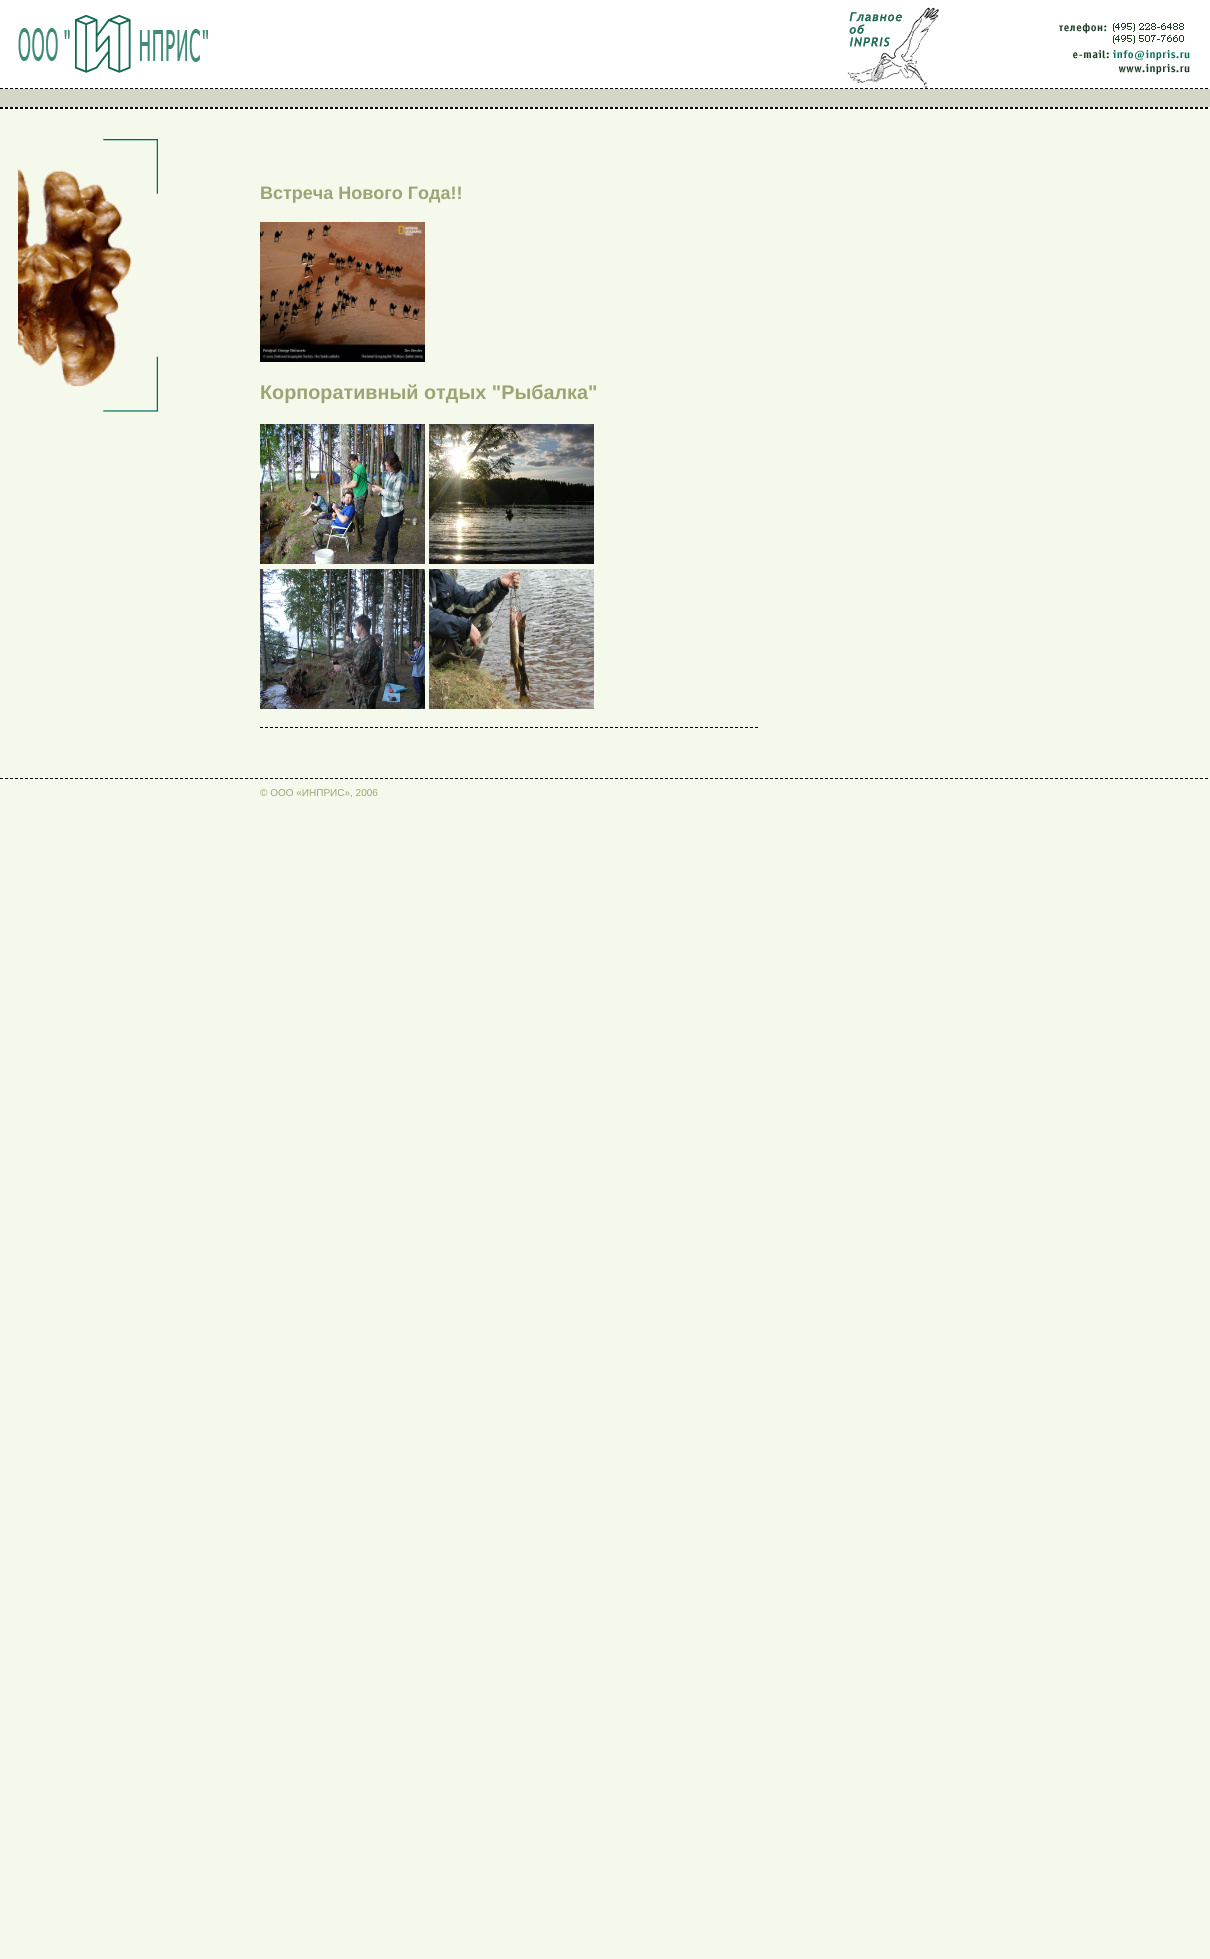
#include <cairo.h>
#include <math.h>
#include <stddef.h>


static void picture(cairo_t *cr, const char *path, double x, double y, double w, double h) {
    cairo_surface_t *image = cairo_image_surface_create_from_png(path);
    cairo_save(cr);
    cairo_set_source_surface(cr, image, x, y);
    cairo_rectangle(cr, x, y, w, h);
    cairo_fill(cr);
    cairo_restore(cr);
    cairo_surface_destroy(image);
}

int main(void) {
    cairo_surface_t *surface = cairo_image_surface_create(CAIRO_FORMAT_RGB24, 1210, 1959);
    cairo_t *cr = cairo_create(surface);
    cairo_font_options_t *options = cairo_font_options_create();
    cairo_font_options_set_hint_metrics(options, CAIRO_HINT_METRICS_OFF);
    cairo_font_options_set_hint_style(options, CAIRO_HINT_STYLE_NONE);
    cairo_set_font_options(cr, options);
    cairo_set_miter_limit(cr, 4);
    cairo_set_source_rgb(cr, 0.957, 0.973, 0.918);
    cairo_paint(cr);
    cairo_set_source_rgb(cr, 1, 1, 1);
    cairo_rectangle(cr, 0, 0, 1210, 89);
    cairo_fill(cr);
    picture(cr, "img1.png", 18, 15, 190, 58);
    picture(cr, "img2.png", 847, 7, 92, 81);
    picture(cr, "img3.png", 1059, 23, 131, 52);
    picture(cr, "img4.png", 0, 88, 1208, 1);
    cairo_set_source_rgb(cr, 0.831, 0.839, 0.78);
    cairo_rectangle(cr, 0, 89, 1210, 18);
    cairo_fill(cr);
    picture(cr, "img5.png", 0, 107, 1208, 2);
    picture(cr, "img6.png", 18, 139, 140, 273);
    cairo_select_font_face(cr, "Liberation Sans", CAIRO_FONT_SLANT_NORMAL, CAIRO_FONT_WEIGHT_BOLD);
    cairo_set_font_size(cr, 18);
    cairo_set_source_rgb(cr, 0.62, 0.639, 0.455);
    cairo_move_to(cr, 260, 199);
    cairo_show_text(cr, "Встреча Нового Года!!");
    picture(cr, "img7.png", 260, 222, 165, 140);
    cairo_set_font_size(cr, 19.8);
    cairo_move_to(cr, 260, 399);
    cairo_show_text(cr, "Корпоративный отдых \"Рыбалка\"");
    picture(cr, "img8.png", 260, 424, 165, 140);
    picture(cr, "img9.png", 429, 424, 165, 140);
    picture(cr, "img10.png", 260, 569, 165, 140);
    picture(cr, "img11.png", 429, 569, 165, 140);
    picture(cr, "img12.png", 260, 727, 498, 1);
    picture(cr, "img13.png", 0, 778, 1208, 1);
    cairo_select_font_face(cr, "Liberation Sans", CAIRO_FONT_SLANT_NORMAL, CAIRO_FONT_WEIGHT_NORMAL);
    cairo_set_font_size(cr, 10);
    cairo_move_to(cr, 260, 796);
    cairo_show_text(cr, "© ООО «ИНПРИС», 2006");
    cairo_surface_write_to_png(surface, "page.png");
    cairo_font_options_destroy(options);
    cairo_destroy(cr);
    cairo_surface_destroy(surface);
    return 0;
}
